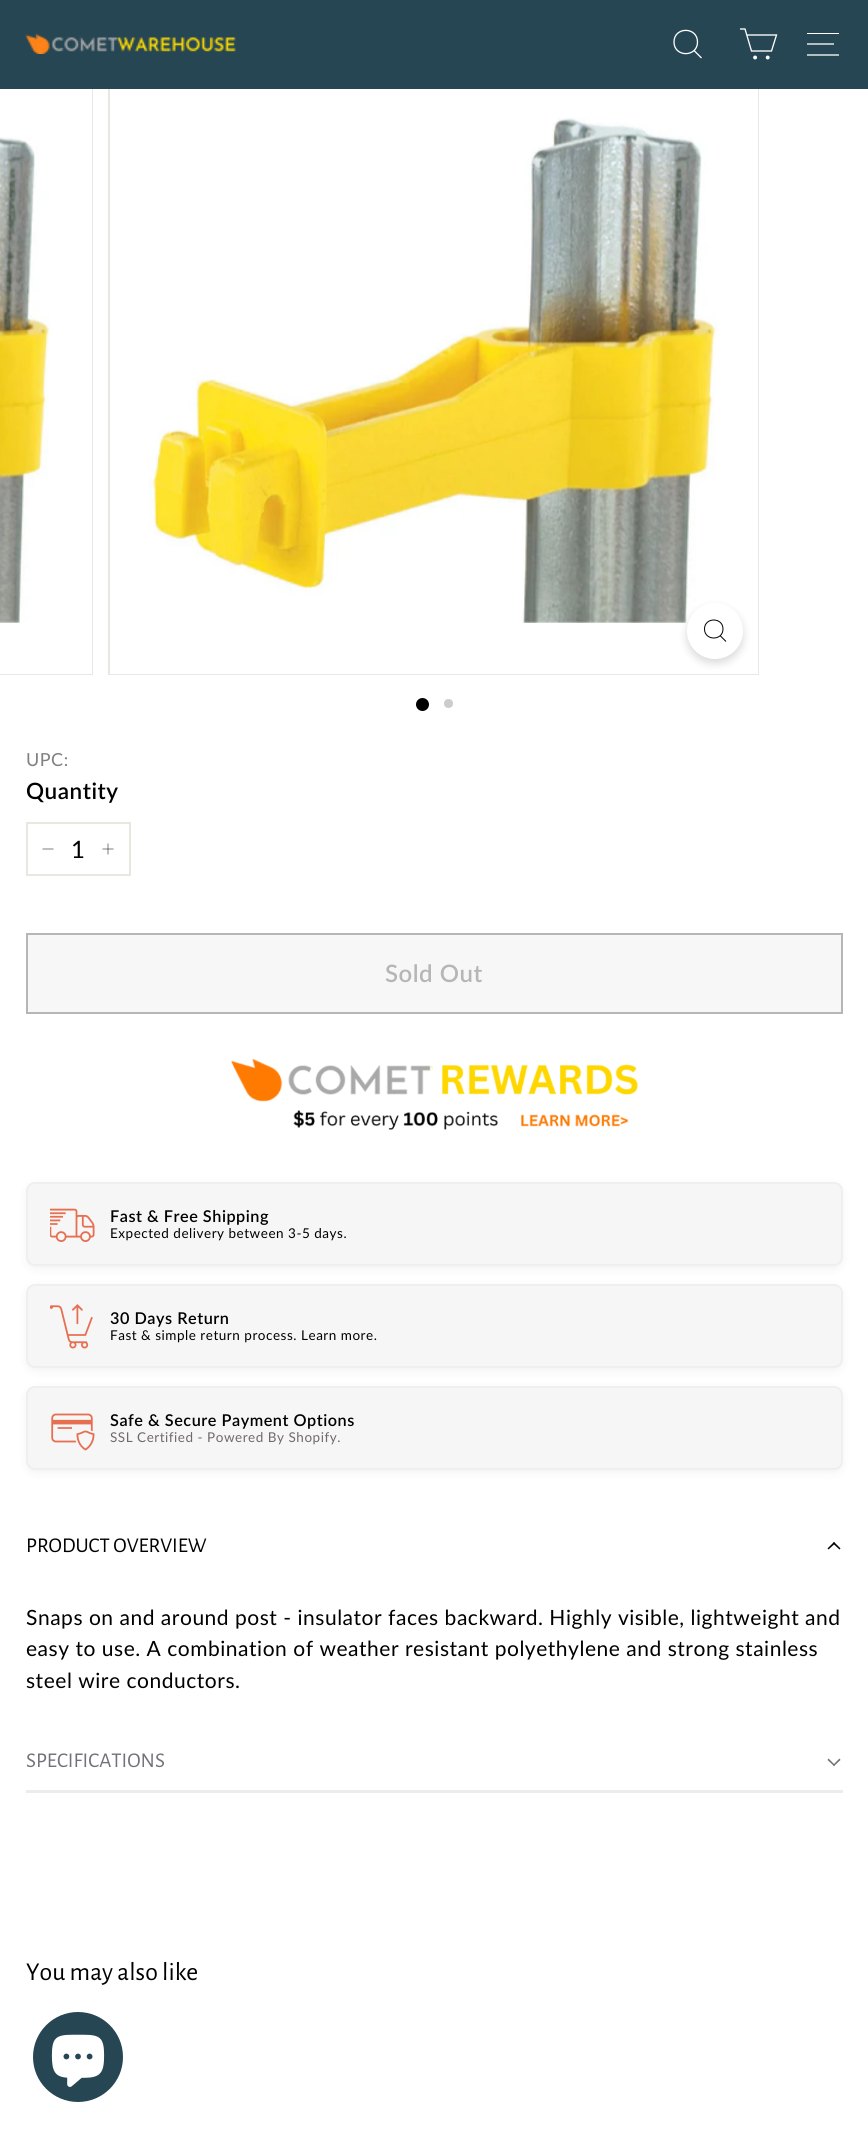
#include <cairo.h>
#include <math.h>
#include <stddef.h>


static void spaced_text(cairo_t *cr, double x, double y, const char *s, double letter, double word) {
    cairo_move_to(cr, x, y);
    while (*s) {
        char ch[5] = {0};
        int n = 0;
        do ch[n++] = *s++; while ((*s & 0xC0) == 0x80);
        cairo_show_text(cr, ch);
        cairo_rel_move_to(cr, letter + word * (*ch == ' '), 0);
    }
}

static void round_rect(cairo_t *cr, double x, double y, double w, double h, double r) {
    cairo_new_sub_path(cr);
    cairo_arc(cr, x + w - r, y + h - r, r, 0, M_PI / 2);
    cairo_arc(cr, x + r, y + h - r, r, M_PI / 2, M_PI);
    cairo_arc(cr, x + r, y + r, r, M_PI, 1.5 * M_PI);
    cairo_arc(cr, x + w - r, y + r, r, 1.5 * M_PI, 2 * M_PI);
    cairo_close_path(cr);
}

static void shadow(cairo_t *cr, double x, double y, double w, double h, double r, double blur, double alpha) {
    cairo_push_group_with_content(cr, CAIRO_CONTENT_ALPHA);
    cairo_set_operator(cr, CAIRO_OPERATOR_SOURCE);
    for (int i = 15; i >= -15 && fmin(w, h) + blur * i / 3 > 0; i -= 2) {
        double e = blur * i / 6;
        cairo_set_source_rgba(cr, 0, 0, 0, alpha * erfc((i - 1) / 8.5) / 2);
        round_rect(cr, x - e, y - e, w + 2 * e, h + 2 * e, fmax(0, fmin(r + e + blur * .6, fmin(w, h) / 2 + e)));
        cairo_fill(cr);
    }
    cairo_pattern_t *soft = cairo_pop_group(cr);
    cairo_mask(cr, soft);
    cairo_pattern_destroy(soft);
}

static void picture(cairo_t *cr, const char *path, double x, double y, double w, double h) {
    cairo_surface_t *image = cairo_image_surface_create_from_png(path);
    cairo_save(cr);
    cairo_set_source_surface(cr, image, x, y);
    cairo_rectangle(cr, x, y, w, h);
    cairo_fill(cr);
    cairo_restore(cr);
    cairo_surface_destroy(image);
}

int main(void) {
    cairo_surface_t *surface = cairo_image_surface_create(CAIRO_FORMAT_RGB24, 868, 2133);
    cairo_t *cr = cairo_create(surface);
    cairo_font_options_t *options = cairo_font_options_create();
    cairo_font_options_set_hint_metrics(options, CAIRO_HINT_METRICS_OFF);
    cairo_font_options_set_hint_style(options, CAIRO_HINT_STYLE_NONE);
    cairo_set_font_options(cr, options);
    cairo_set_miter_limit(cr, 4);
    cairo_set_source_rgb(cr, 1, 1, 1);
    cairo_paint(cr);
    cairo_rectangle(cr, -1, 25, 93, 649);
    cairo_set_source_rgb(cr, 0.91, 0.91, 0.882);
    cairo_stroke(cr);
    cairo_rectangle(cr, 109, 25, 649, 649);
    cairo_stroke(cr);
    cairo_set_source_rgb(cr, 0.149, 0.275, 0.325);
    cairo_rectangle(cr, 0, 0, 868, 89);
    cairo_fill(cr);
    picture(cr, "img1.png", 25, 34, 211, 20);
    cairo_new_path(cr);
    cairo_move_to(cr, 697.5, 42);
    cairo_curve_to(cr, 697.5, 57.5, 674, 57.5, 674, 42);
    cairo_curve_to(cr, 674, 26.5, 697.5, 26.5, 697.5, 42);
    cairo_close_path(cr);
    cairo_move_to(cr, 701.5, 58);
    cairo_line_to(cr, 694, 50.5);
    cairo_set_source_rgb(cr, 1, 1, 1);
    cairo_set_line_width(cr, 1.3);
    cairo_stroke(cr);
    cairo_new_path(cr);
    cairo_move_to(cr, 747, 35);
    cairo_line_to(cr, 776.5, 35);
    cairo_line_to(cr, 771.5, 51);
    cairo_line_to(cr, 751.5, 51);
    cairo_line_to(cr, 745, 29);
    cairo_line_to(cr, 740, 29);
    cairo_stroke(cr);
    cairo_arc(cr, 755.1, 57.5, 1.3, 0, 2 * M_PI);
    cairo_fill_preserve(cr);
    cairo_stroke(cr);
    cairo_arc(cr, 767.7, 57.5, 1.3, 0, 2 * M_PI);
    cairo_fill_preserve(cr);
    cairo_stroke(cr);
    cairo_rectangle(cr, 807, 33, 32, 1);
    cairo_fill(cr);
    cairo_new_path(cr);
    cairo_move_to(cr, 807, 44);
    cairo_line_to(cr, 834, 44);
    cairo_move_to(cr, 807, 55);
    cairo_line_to(cr, 839, 55);
    cairo_stroke(cr);
    cairo_rectangle(cr, 0, 89, 92, 585);
    cairo_fill(cr);
    picture(cr, "img2.png", 0, 137, 50, 486);
    cairo_rectangle(cr, 110, 89, 648, 585);
    cairo_fill(cr);
    picture(cr, "img3.png", 149, 117, 568, 506);
    cairo_set_source_rgb(cr, 0, 0, 0);
    shadow(cr, 687, 608, 56, 55, 27.5, 4.5, 0.15);
    cairo_set_source_rgb(cr, 1, 1, 1);
    cairo_arc(cr, 715, 631, 28, 0, 2 * M_PI);
    cairo_fill(cr);
    cairo_new_path(cr);
    cairo_move_to(cr, 723, 629);
    cairo_curve_to(cr, 723, 641, 704.5, 641, 704.5, 629);
    cairo_curve_to(cr, 704.5, 617, 723, 617, 723, 629);
    cairo_close_path(cr);
    cairo_move_to(cr, 726, 641.5);
    cairo_line_to(cr, 720, 635.5);
    cairo_set_source_rgb(cr, 0, 0, 0);
    cairo_set_line_width(cr, 1);
    cairo_stroke(cr);
    cairo_arc(cr, 422.5, 704.5, 6.5, 0, 2 * M_PI);
    cairo_fill(cr);
    cairo_set_source_rgb(cr, 0.8, 0.8, 0.8);
    cairo_arc(cr, 448.5, 703.5, 4.5, 0, 2 * M_PI);
    cairo_fill(cr);
    cairo_select_font_face(cr, "Lato", CAIRO_FONT_SLANT_NORMAL, CAIRO_FONT_WEIGHT_NORMAL);
    cairo_set_font_size(cr, 18);
    cairo_set_source_rgb(cr, 0.502, 0.502, 0.502);
    spaced_text(cr, 26, 766, "UPC:", 0.52, 0);
    cairo_select_font_face(cr, "Lato SemiBold", CAIRO_FONT_SLANT_NORMAL, CAIRO_FONT_WEIGHT_NORMAL);
    cairo_set_font_size(cr, 22.5);
    cairo_set_source_rgb(cr, 0, 0, 0);
    spaced_text(cr, 26, 799, "Quantity", 0.52, 0);
    cairo_rectangle(cr, 27, 823, 103, 52);
    cairo_set_source_rgb(cr, 0.91, 0.91, 0.882);
    cairo_set_line_width(cr, 2);
    cairo_stroke(cr);
    cairo_new_path(cr);
    cairo_move_to(cr, 53.5, 849);
    cairo_line_to(cr, 42.5, 849);
    cairo_set_source_rgb(cr, 0, 0, 0);
    cairo_set_line_width(cr, 0.5);
    cairo_stroke(cr);
    cairo_select_font_face(cr, "Lato", CAIRO_FONT_SLANT_NORMAL, CAIRO_FONT_WEIGHT_NORMAL);
    cairo_set_font_size(cr, 24);
    spaced_text(cr, 71, 858, "1", 0.5, 0);
    cairo_new_path(cr);
    cairo_move_to(cr, 108, 843.5);
    cairo_line_to(cr, 108, 854.5);
    cairo_move_to(cr, 113.5, 849);
    cairo_line_to(cr, 102.5, 849);
    cairo_stroke(cr);
    cairo_set_source_rgb(cr, 0.965, 0.965, 0.965);
    cairo_rectangle(cr, 27, 934, 815, 79);
    cairo_fill_preserve(cr);
    cairo_set_source_rgb(cr, 0.714, 0.714, 0.714);
    cairo_set_line_width(cr, 2);
    cairo_stroke(cr);
    cairo_select_font_face(cr, "Lato SemiBold", CAIRO_FONT_SLANT_NORMAL, CAIRO_FONT_WEIGHT_NORMAL);
    spaced_text(cr, 385, 982, "Sold Out", 0.5, 0);
    picture(cr, "img4.png", 231, 1059, 407, 71);
    cairo_set_source_rgb(cr, 0, 0, 0);
    shadow(cr, 26, 1185, 817, 84, 9, 4.5, 0.05);
    cairo_set_source_rgb(cr, 0.961, 0.961, 0.961);
    round_rect(cr, 27, 1183, 815, 82, 8);
    cairo_fill_preserve(cr);
    cairo_set_source_rgb(cr, 0.937, 0.937, 0.937);
    cairo_stroke(cr);
    picture(cr, "img5.png", 50, 1208, 45, 34);
    cairo_set_font_size(cr, 16.25);
    cairo_set_source_rgb(cr, 0, 0, 0);
    spaced_text(cr, 110, 1222, "Fast & Free Shipping", 0.52, 0);
    cairo_select_font_face(cr, "Lato", CAIRO_FONT_SLANT_NORMAL, CAIRO_FONT_WEIGHT_NORMAL);
    cairo_set_font_size(cr, 13.5);
    spaced_text(cr, 110, 1238, "Expected delivery between 3-5 days.", 0.52, 0);
    cairo_set_source_rgb(cr, 0, 0, 0);
    shadow(cr, 26, 1287, 817, 84, 9, 4.5, 0.05);
    cairo_set_source_rgb(cr, 0.961, 0.961, 0.961);
    round_rect(cr, 27, 1285, 815, 82, 8);
    cairo_fill_preserve(cr);
    cairo_set_source_rgb(cr, 0.937, 0.937, 0.937);
    cairo_stroke(cr);
    picture(cr, "img6.png", 50, 1304, 43, 45);
    cairo_select_font_face(cr, "Lato SemiBold", CAIRO_FONT_SLANT_NORMAL, CAIRO_FONT_WEIGHT_NORMAL);
    cairo_set_font_size(cr, 16.25);
    cairo_set_source_rgb(cr, 0, 0, 0);
    spaced_text(cr, 110, 1324, "30 Days Return", 0.52, 0);
    cairo_select_font_face(cr, "Lato", CAIRO_FONT_SLANT_NORMAL, CAIRO_FONT_WEIGHT_NORMAL);
    cairo_set_font_size(cr, 13.5);
    spaced_text(cr, 110, 1340, "Fast & simple return process. Learn more.", 0.52, 0);
    cairo_set_source_rgb(cr, 0, 0, 0);
    shadow(cr, 26, 1389, 817, 84, 9, 4.5, 0.05);
    cairo_set_source_rgb(cr, 0.961, 0.961, 0.961);
    round_rect(cr, 27, 1387, 815, 82, 8);
    cairo_fill_preserve(cr);
    cairo_set_source_rgb(cr, 0.937, 0.937, 0.937);
    cairo_stroke(cr);
    picture(cr, "img7.png", 51, 1413, 44, 38);
    cairo_select_font_face(cr, "Lato SemiBold", CAIRO_FONT_SLANT_NORMAL, CAIRO_FONT_WEIGHT_NORMAL);
    cairo_set_font_size(cr, 16.25);
    cairo_set_source_rgb(cr, 0, 0, 0);
    spaced_text(cr, 110, 1426, "Safe & Secure Payment Options", 0.52, 0);
    cairo_select_font_face(cr, "Lato", CAIRO_FONT_SLANT_NORMAL, CAIRO_FONT_WEIGHT_NORMAL);
    cairo_set_font_size(cr, 13.5);
    cairo_set_source_rgb(cr, 0.443, 0.412, 0.412);
    spaced_text(cr, 110, 1442, "SSL Certified - Powered By Shopify.", 0.52, 0);
    cairo_select_font_face(cr, "Alegreya Sans", CAIRO_FONT_SLANT_NORMAL, CAIRO_FONT_WEIGHT_NORMAL);
    cairo_set_font_size(cr, 21);
    cairo_set_source_rgb(cr, 0, 0, 0);
    cairo_move_to(cr, 26, 1552);
    cairo_show_text(cr, "PRODUCT OVERVIEW");
    cairo_new_path(cr);
    cairo_move_to(cr, 828.5, 1549.5);
    cairo_line_to(cr, 827.5, 1548.5);
    cairo_line_to(cr, 834, 1542);
    cairo_line_to(cr, 835, 1543.5);
    cairo_close_path(cr);
    cairo_fill(cr);
    cairo_new_path(cr);
    cairo_move_to(cr, 839.5, 1549.5);
    cairo_line_to(cr, 833, 1543.5);
    cairo_line_to(cr, 834, 1542);
    cairo_line_to(cr, 840.5, 1548.5);
    cairo_close_path(cr);
    cairo_fill(cr);
    cairo_select_font_face(cr, "Lato", CAIRO_FONT_SLANT_NORMAL, CAIRO_FONT_WEIGHT_NORMAL);
    spaced_text(cr, 26, 1625, "Snaps on and around post - insulator faces backward. Highly visible, lightweight and", 0.52, 0);
    spaced_text(cr, 26, 1656, "easy to use. A combination of weather resistant polyethylene and strong stainless", 0.52, 0);
    spaced_text(cr, 26, 1688, "steel wire conductors.", 0.52, 0);
    cairo_set_source_rgb(cr, 0.922, 0.922, 0.922);
    cairo_rectangle(cr, 26, 1790, 817, 3);
    cairo_fill(cr);
    cairo_select_font_face(cr, "Alegreya Sans", CAIRO_FONT_SLANT_NORMAL, CAIRO_FONT_WEIGHT_NORMAL);
    cairo_set_source_rgb(cr, 0.443, 0.443, 0.478);
    cairo_move_to(cr, 26, 1767);
    cairo_show_text(cr, "SPECIFICATIONS");
    cairo_new_path(cr);
    cairo_move_to(cr, 839.5, 1758.5);
    cairo_line_to(cr, 840.5, 1760);
    cairo_line_to(cr, 834, 1766);
    cairo_line_to(cr, 833, 1765);
    cairo_close_path(cr);
    cairo_fill(cr);
    cairo_new_path(cr);
    cairo_move_to(cr, 828.5, 1758.5);
    cairo_line_to(cr, 835, 1765);
    cairo_line_to(cr, 834, 1766);
    cairo_line_to(cr, 827.5, 1760);
    cairo_close_path(cr);
    cairo_fill(cr);
    cairo_set_font_size(cr, 25.75);
    cairo_set_source_rgb(cr, 0, 0, 0);
    cairo_move_to(cr, 26, 1980);
    cairo_show_text(cr, "You may also like");
    cairo_set_source_rgb(cr, 0.149, 0.275, 0.325);
    cairo_new_path(cr);
    cairo_arc(cr, 78, 2057, 45, 0, 2 * M_PI);
    cairo_fill(cr);
    picture(cr, "img8.png", 51, 2034, 54, 53);
    cairo_surface_write_to_png(surface, "page.png");
    cairo_font_options_destroy(options);
    cairo_destroy(cr);
    cairo_surface_destroy(surface);
    return 0;
}
